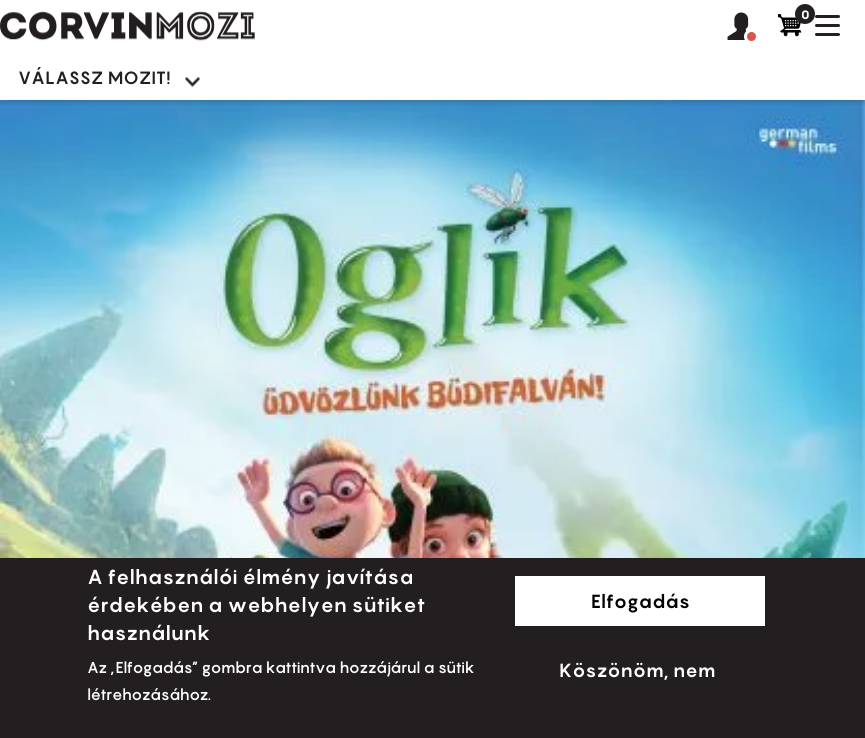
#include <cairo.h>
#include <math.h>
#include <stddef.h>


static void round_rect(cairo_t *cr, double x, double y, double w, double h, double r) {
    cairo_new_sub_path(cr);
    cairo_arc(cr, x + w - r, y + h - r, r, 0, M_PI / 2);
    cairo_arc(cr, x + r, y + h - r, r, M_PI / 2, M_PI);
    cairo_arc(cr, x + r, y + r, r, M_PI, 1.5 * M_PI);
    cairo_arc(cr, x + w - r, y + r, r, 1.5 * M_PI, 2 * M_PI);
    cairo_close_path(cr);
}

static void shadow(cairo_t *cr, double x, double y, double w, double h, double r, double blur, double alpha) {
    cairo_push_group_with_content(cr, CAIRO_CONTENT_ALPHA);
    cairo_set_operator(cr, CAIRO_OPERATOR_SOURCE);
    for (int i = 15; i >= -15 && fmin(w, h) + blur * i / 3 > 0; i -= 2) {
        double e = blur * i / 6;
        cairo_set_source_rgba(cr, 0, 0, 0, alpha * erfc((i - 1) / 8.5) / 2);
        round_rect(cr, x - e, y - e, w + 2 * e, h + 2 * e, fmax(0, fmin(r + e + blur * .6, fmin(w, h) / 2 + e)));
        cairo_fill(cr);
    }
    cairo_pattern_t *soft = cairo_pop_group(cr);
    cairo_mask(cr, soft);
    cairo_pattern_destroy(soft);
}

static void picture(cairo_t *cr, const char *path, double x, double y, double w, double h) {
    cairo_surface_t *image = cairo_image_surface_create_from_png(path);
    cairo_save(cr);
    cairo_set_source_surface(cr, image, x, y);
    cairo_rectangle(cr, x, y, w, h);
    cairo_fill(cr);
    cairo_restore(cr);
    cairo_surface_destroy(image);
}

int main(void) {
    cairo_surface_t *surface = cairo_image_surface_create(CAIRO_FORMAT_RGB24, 865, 738);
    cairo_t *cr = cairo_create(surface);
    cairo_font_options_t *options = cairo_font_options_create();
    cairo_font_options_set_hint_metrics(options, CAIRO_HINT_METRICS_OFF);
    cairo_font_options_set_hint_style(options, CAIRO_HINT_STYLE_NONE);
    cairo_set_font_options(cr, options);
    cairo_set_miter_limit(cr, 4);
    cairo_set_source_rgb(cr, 1, 1, 1);
    cairo_paint(cr);
    picture(cr, "img5.png", 0, 100, 865, 458);
    cairo_save(cr);
    cairo_rectangle(cr, 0, 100, 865, 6);
    cairo_clip(cr);
    cairo_set_source_rgb(cr, 0.137, 0.122, 0.125);
    shadow(cr, 0, 3, 865, 100, 0, 2.5, 0.2);
    cairo_restore(cr);
    picture(cr, "img1.png", 727, 12, 22, 28);
    cairo_set_source_rgb(cr, 0.851, 0.325, 0.31);
    cairo_arc(cr, 751.5, 36.5, 6, 0, 2 * M_PI);
    cairo_fill_preserve(cr);
    cairo_set_source_rgb(cr, 1, 1, 1);
    cairo_set_line_width(cr, 3);
    cairo_stroke(cr);
    picture(cr, "img2.png", 778, 14, 24, 23);
    cairo_set_source_rgb(cr, 0.137, 0.122, 0.125);
    cairo_arc(cr, 805, 14, 10, 0, 2 * M_PI);
    cairo_fill(cr);
    cairo_select_font_face(cr, "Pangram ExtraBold", CAIRO_FONT_SLANT_NORMAL, CAIRO_FONT_WEIGHT_NORMAL);
    cairo_set_font_size(cr, 12);
    cairo_set_source_rgb(cr, 1, 1, 1);
    cairo_move_to(cr, 801, 19);
    cairo_show_text(cr, "0");
    cairo_set_source_rgb(cr, 0.137, 0.122, 0.125);
    round_rect(cr, 815, 15, 25, 3, 1.5);
    cairo_fill(cr);
    round_rect(cr, 815, 24, 25, 3, 1.5);
    cairo_fill(cr);
    round_rect(cr, 815, 33, 25, 3, 1.5);
    cairo_fill(cr);
    picture(cr, "img3.png", 0, 11, 255, 30);
    cairo_select_font_face(cr, "Pangram", CAIRO_FONT_SLANT_NORMAL, CAIRO_FONT_WEIGHT_BOLD);
    cairo_set_font_size(cr, 17.5);
    cairo_move_to(cr, 18, 84);
    cairo_show_text(cr, "VÁLASSZ MOZIT!");
    picture(cr, "img4.png", 185, 76, 15, 12);
    cairo_rectangle(cr, 0, 558, 865, 180);
    cairo_fill(cr);
    cairo_set_font_size(cr, 20);
    cairo_set_source_rgb(cr, 1, 1, 1);
    cairo_move_to(cr, 87, 584);
    cairo_show_text(cr, "A felhasználói élmény javítása");
    cairo_move_to(cr, 87, 612);
    cairo_show_text(cr, "érdekében a webhelyen sütiket");
    cairo_move_to(cr, 87, 640);
    cairo_show_text(cr, "használunk");
    cairo_select_font_face(cr, "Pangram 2", CAIRO_FONT_SLANT_NORMAL, CAIRO_FONT_WEIGHT_BOLD);
    cairo_set_font_size(cr, 15);
    cairo_move_to(cr, 87, 673);
    cairo_show_text(cr, "Az „Elfogadás” gombra kattintva hozzájárul a sütik");
    cairo_move_to(cr, 87, 700);
    cairo_show_text(cr, "létrehozásához.");
    cairo_rectangle(cr, 515, 576, 250, 50);
    cairo_fill(cr);
    cairo_select_font_face(cr, "Pangram", CAIRO_FONT_SLANT_NORMAL, CAIRO_FONT_WEIGHT_BOLD);
    cairo_set_font_size(cr, 18.75);
    cairo_set_source_rgb(cr, 0, 0, 0);
    cairo_move_to(cr, 591, 608);
    cairo_show_text(cr, "Elfogadás");
    cairo_set_source_rgb(cr, 1, 1, 1);
    cairo_move_to(cr, 559, 677);
    cairo_show_text(cr, "Köszönöm, nem");
    cairo_surface_write_to_png(surface, "page.png");
    cairo_font_options_destroy(options);
    cairo_destroy(cr);
    cairo_surface_destroy(surface);
    return 0;
}
